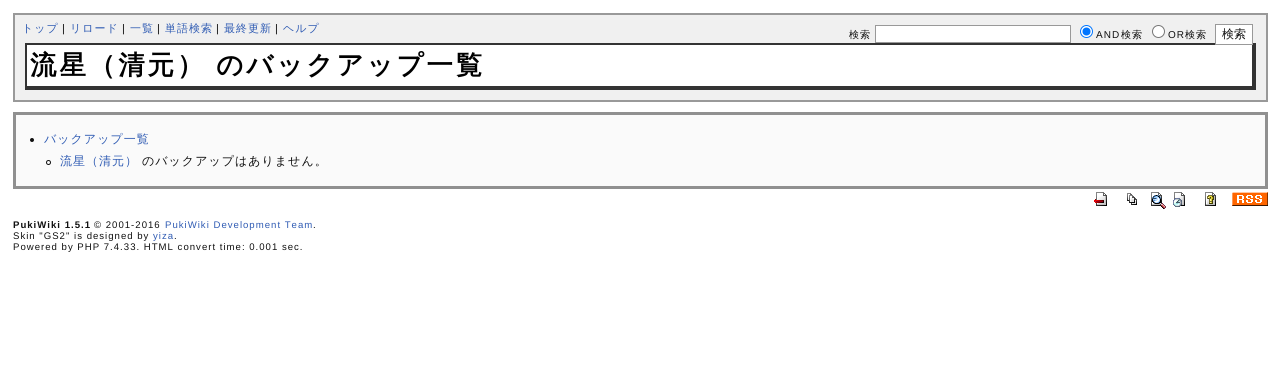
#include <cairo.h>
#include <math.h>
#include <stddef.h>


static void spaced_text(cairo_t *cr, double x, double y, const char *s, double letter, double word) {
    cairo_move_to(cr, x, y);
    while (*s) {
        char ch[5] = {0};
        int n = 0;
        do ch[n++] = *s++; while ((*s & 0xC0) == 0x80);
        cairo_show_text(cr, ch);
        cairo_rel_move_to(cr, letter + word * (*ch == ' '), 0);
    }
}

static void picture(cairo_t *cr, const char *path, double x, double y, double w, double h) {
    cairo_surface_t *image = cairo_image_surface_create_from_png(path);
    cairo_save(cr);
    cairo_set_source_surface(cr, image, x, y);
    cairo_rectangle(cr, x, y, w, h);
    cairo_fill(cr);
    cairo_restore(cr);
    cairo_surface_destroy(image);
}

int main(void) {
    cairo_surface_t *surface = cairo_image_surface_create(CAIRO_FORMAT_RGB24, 1281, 386);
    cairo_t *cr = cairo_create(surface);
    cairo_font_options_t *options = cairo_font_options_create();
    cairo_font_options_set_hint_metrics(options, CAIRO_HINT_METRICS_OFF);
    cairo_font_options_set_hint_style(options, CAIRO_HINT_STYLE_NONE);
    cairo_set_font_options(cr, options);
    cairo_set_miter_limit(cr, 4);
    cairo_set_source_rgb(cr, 1, 1, 1);
    cairo_paint(cr);
    cairo_set_source_rgb(cr, 0.941, 0.941, 0.941);
    cairo_rectangle(cr, 14, 14, 1253, 87);
    cairo_fill_preserve(cr);
    cairo_set_source_rgb(cr, 0.6, 0.6, 0.6);
    cairo_stroke(cr);
    cairo_select_font_face(cr, "WenQuanYi Zen Hei Medium", CAIRO_FONT_SLANT_NORMAL, CAIRO_FONT_WEIGHT_NORMAL);
    cairo_set_font_size(cr, 11);
    cairo_set_source_rgb(cr, 0.184, 0.357, 0.702);
    spaced_text(cr, 22, 32, "トップ", 1, 0);
    cairo_select_font_face(cr, "Liberation Sans", CAIRO_FONT_SLANT_NORMAL, CAIRO_FONT_WEIGHT_NORMAL);
    cairo_set_source_rgb(cr, 0.063, 0.063, 0.063);
    spaced_text(cr, 62, 32, "|", 1, 0);
    cairo_select_font_face(cr, "WenQuanYi Zen Hei Medium", CAIRO_FONT_SLANT_NORMAL, CAIRO_FONT_WEIGHT_NORMAL);
    cairo_set_source_rgb(cr, 0.184, 0.357, 0.702);
    spaced_text(cr, 70, 32, "リロード", 1, 0);
    cairo_select_font_face(cr, "Liberation Sans", CAIRO_FONT_SLANT_NORMAL, CAIRO_FONT_WEIGHT_NORMAL);
    cairo_set_source_rgb(cr, 0.063, 0.063, 0.063);
    spaced_text(cr, 122, 32, "|", 1, 0);
    cairo_select_font_face(cr, "WenQuanYi Zen Hei Medium", CAIRO_FONT_SLANT_NORMAL, CAIRO_FONT_WEIGHT_NORMAL);
    cairo_set_source_rgb(cr, 0.184, 0.357, 0.702);
    spaced_text(cr, 130, 32, "一覧", 1, 0);
    cairo_select_font_face(cr, "Liberation Sans", CAIRO_FONT_SLANT_NORMAL, CAIRO_FONT_WEIGHT_NORMAL);
    cairo_set_source_rgb(cr, 0.063, 0.063, 0.063);
    spaced_text(cr, 157, 32, "|", 1, 0);
    cairo_select_font_face(cr, "WenQuanYi Zen Hei Medium", CAIRO_FONT_SLANT_NORMAL, CAIRO_FONT_WEIGHT_NORMAL);
    cairo_set_source_rgb(cr, 0.184, 0.357, 0.702);
    spaced_text(cr, 165, 32, "単語検索", 1, 0);
    cairo_select_font_face(cr, "Liberation Sans", CAIRO_FONT_SLANT_NORMAL, CAIRO_FONT_WEIGHT_NORMAL);
    cairo_set_source_rgb(cr, 0.063, 0.063, 0.063);
    spaced_text(cr, 216, 32, "|", 1, 0);
    cairo_select_font_face(cr, "WenQuanYi Zen Hei Medium", CAIRO_FONT_SLANT_NORMAL, CAIRO_FONT_WEIGHT_NORMAL);
    cairo_set_source_rgb(cr, 0.184, 0.357, 0.702);
    spaced_text(cr, 224, 32, "最終更新", 1, 0);
    cairo_select_font_face(cr, "Liberation Sans", CAIRO_FONT_SLANT_NORMAL, CAIRO_FONT_WEIGHT_NORMAL);
    cairo_set_source_rgb(cr, 0.063, 0.063, 0.063);
    spaced_text(cr, 275, 32, "|", 1, 0);
    cairo_select_font_face(cr, "WenQuanYi Zen Hei Medium", CAIRO_FONT_SLANT_NORMAL, CAIRO_FONT_WEIGHT_NORMAL);
    cairo_set_source_rgb(cr, 0.184, 0.357, 0.702);
    spaced_text(cr, 283, 32, "ヘルプ", 1, 0);
    cairo_set_font_size(cr, 10);
    cairo_set_source_rgb(cr, 0.063, 0.063, 0.063);
    spaced_text(cr, 849, 38, "検索", 1, 0);
    cairo_set_source_rgb(cr, 1, 1, 1);
    cairo_rectangle(cr, 875.5, 25.5, 195, 17);
    cairo_fill_preserve(cr);
    cairo_set_source_rgb(cr, 0.6, 0.6, 0.6);
    cairo_set_line_width(cr, 1);
    cairo_stroke(cr);
    cairo_set_source_rgb(cr, 1, 1, 1);
    cairo_arc(cr, 1086.5, 31.5, 6, 0, 2 * M_PI);
    cairo_fill_preserve(cr);
    cairo_set_source_rgb(cr, 0, 0.459, 1);
    cairo_stroke(cr);
    cairo_arc(cr, 1086.5, 31.5, 4, 0, 2 * M_PI);
    cairo_fill(cr);
    cairo_select_font_face(cr, "Liberation Sans", CAIRO_FONT_SLANT_NORMAL, CAIRO_FONT_WEIGHT_NORMAL);
    cairo_set_source_rgb(cr, 0.063, 0.063, 0.063);
    spaced_text(cr, 1096, 38, "AND", 1, 0);
    cairo_select_font_face(cr, "WenQuanYi Zen Hei Medium", CAIRO_FONT_SLANT_NORMAL, CAIRO_FONT_WEIGHT_NORMAL);
    spaced_text(cr, 1121, 38, "検索", 1, 0);
    cairo_set_source_rgb(cr, 1, 1, 1);
    cairo_new_path(cr);
    cairo_arc(cr, 1158.5, 31.5, 6, 0, 2 * M_PI);
    cairo_fill_preserve(cr);
    cairo_set_source_rgb(cr, 0.463, 0.463, 0.463);
    cairo_stroke(cr);
    cairo_select_font_face(cr, "Liberation Sans", CAIRO_FONT_SLANT_NORMAL, CAIRO_FONT_WEIGHT_NORMAL);
    cairo_set_source_rgb(cr, 0.063, 0.063, 0.063);
    spaced_text(cr, 1168, 38, "OR", 1, 0);
    cairo_select_font_face(cr, "WenQuanYi Zen Hei Medium", CAIRO_FONT_SLANT_NORMAL, CAIRO_FONT_WEIGHT_NORMAL);
    spaced_text(cr, 1185, 38, "検索", 1, 0);
    cairo_set_source_rgb(cr, 0.2, 0.2, 0.2);
    cairo_rectangle(cr, 1252, 43, 4, 47);
    cairo_fill(cr);
    cairo_set_source_rgb(cr, 1, 1, 1);
    cairo_rectangle(cr, 1215.5, 24.5, 37, 20);
    cairo_fill_preserve(cr);
    cairo_set_source_rgb(cr, 0.6, 0.6, 0.6);
    cairo_stroke(cr);
    cairo_set_font_size(cr, 12);
    cairo_set_source_rgb(cr, 0.063, 0.063, 0.063);
    cairo_move_to(cr, 1222, 38);
    cairo_show_text(cr, "検索");
    cairo_set_source_rgb(cr, 1, 1, 1);
    cairo_rectangle(cr, 27, 45, 1225, 41);
    cairo_fill(cr);
    cairo_set_source_rgb(cr, 0.2, 0.2, 0.2);
    cairo_rectangle(cr, 25, 43, 1190, 2);
    cairo_fill(cr);
    cairo_rectangle(cr, 25, 86, 1231, 4);
    cairo_fill(cr);
    cairo_rectangle(cr, 25, 43, 2, 47);
    cairo_fill(cr);
    cairo_select_font_face(cr, "WenQuanYi Zen Hei", CAIRO_FONT_SLANT_NORMAL, CAIRO_FONT_WEIGHT_BOLD);
    cairo_set_font_size(cr, 26.4);
    cairo_set_source_rgb(cr, 0, 0, 0);
    spaced_text(cr, 30, 74, "流星（清元） のバックアップ一覧", 3, -1);
    cairo_set_source_rgb(cr, 0.98, 0.98, 0.98);
    cairo_rectangle(cr, 14.5, 113.5, 1252, 74);
    cairo_fill_preserve(cr);
    cairo_set_source_rgb(cr, 0.565, 0.565, 0.565);
    cairo_set_line_width(cr, 3);
    cairo_stroke(cr);
    cairo_set_source_rgb(cr, 0.063, 0.063, 0.063);
    cairo_arc(cr, 32, 140, 2, 0, 2 * M_PI);
    cairo_fill(cr);
    cairo_select_font_face(cr, "WenQuanYi Zen Hei Medium", CAIRO_FONT_SLANT_NORMAL, CAIRO_FONT_WEIGHT_NORMAL);
    cairo_set_font_size(cr, 12);
    cairo_set_source_rgb(cr, 0.184, 0.357, 0.702);
    spaced_text(cr, 44, 143, "バックアップ一覧", 1, 0);
    cairo_new_path(cr);
    cairo_arc(cr, 48.5, 162.5, 2, 0, 2 * M_PI);
    cairo_set_source_rgb(cr, 0.063, 0.063, 0.063);
    cairo_set_line_width(cr, 1);
    cairo_stroke(cr);
    cairo_set_source_rgb(cr, 0.184, 0.357, 0.702);
    spaced_text(cr, 60, 165, "流星（清元）", 1, 0);
    cairo_set_source_rgb(cr, 0.063, 0.063, 0.063);
    spaced_text(cr, 142, 165, "のバックアップはありません。", 1, 0);
    picture(cr, "img1.png", 1094, 192, 13, 14);
    picture(cr, "img2.png", 1127, 193, 10, 12);
    picture(cr, "img3.png", 1151, 192, 15, 17);
    picture(cr, "img4.png", 1173, 192, 12, 15);
    picture(cr, "img5.png", 1205, 192, 11, 14);
    picture(cr, "img6.png", 1232, 192, 36, 14);
    cairo_select_font_face(cr, "Liberation Sans", CAIRO_FONT_SLANT_NORMAL, CAIRO_FONT_WEIGHT_BOLD);
    cairo_set_font_size(cr, 9.6);
    spaced_text(cr, 13, 228, "PukiWiki 1.5.1", 1, 0);
    cairo_select_font_face(cr, "Liberation Sans", CAIRO_FONT_SLANT_NORMAL, CAIRO_FONT_WEIGHT_NORMAL);
    spaced_text(cr, 94, 228, "© 2001-2016", 1, 0);
    cairo_set_source_rgb(cr, 0.184, 0.357, 0.702);
    spaced_text(cr, 165, 228, "PukiWiki Development Team", 1, 0);
    cairo_set_source_rgb(cr, 0.063, 0.063, 0.063);
    spaced_text(cr, 313, 228, ".", 1, 0);
    spaced_text(cr, 13, 239, "Skin \"GS2\" is designed by", 1, 0);
    cairo_set_source_rgb(cr, 0.184, 0.357, 0.702);
    spaced_text(cr, 153, 239, "yiza", 1, 0);
    cairo_set_source_rgb(cr, 0.063, 0.063, 0.063);
    spaced_text(cr, 174, 239, ".", 1, 0);
    spaced_text(cr, 13, 250, "Powered by PHP 7.4.33. HTML convert time: 0.001 sec.", 1, 0);
    cairo_surface_write_to_png(surface, "page.png");
    cairo_font_options_destroy(options);
    cairo_destroy(cr);
    cairo_surface_destroy(surface);
    return 0;
}
